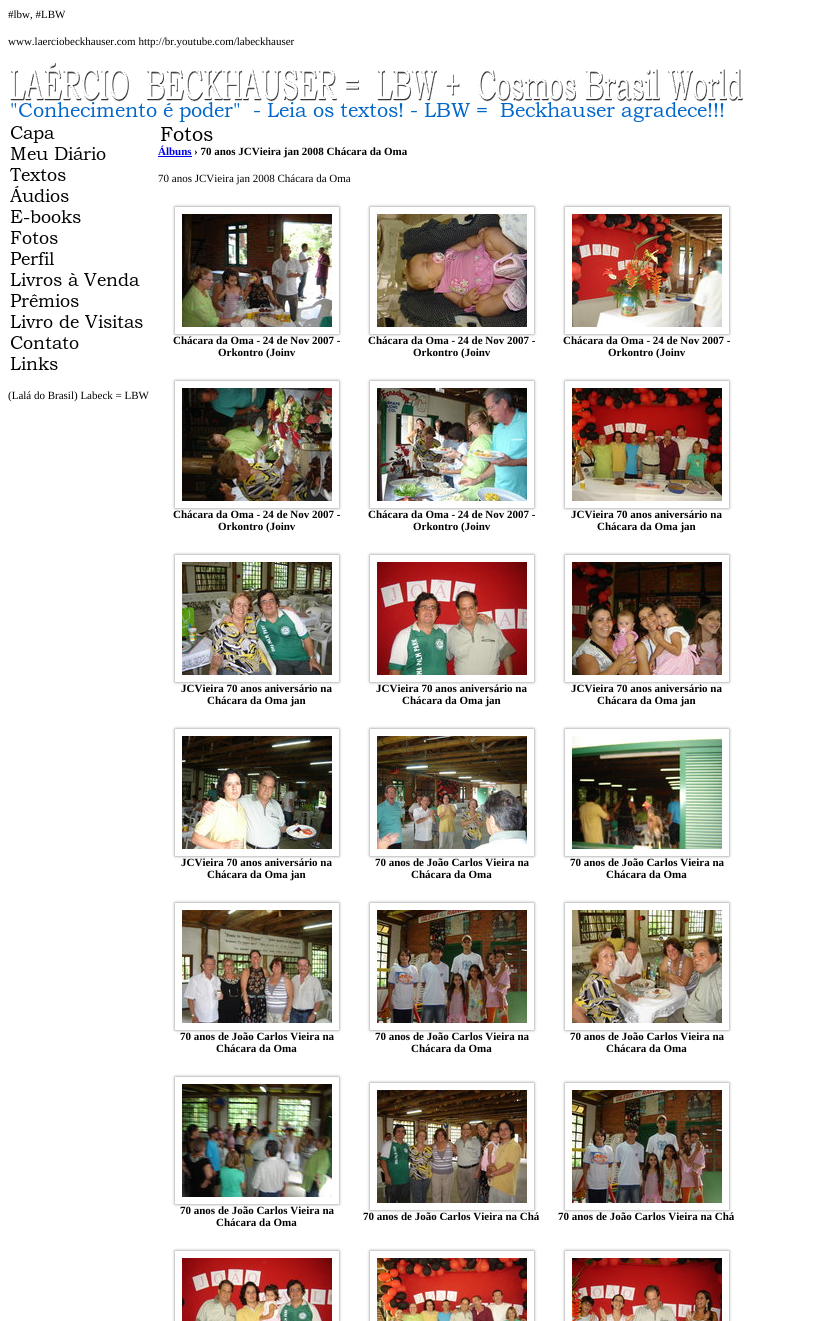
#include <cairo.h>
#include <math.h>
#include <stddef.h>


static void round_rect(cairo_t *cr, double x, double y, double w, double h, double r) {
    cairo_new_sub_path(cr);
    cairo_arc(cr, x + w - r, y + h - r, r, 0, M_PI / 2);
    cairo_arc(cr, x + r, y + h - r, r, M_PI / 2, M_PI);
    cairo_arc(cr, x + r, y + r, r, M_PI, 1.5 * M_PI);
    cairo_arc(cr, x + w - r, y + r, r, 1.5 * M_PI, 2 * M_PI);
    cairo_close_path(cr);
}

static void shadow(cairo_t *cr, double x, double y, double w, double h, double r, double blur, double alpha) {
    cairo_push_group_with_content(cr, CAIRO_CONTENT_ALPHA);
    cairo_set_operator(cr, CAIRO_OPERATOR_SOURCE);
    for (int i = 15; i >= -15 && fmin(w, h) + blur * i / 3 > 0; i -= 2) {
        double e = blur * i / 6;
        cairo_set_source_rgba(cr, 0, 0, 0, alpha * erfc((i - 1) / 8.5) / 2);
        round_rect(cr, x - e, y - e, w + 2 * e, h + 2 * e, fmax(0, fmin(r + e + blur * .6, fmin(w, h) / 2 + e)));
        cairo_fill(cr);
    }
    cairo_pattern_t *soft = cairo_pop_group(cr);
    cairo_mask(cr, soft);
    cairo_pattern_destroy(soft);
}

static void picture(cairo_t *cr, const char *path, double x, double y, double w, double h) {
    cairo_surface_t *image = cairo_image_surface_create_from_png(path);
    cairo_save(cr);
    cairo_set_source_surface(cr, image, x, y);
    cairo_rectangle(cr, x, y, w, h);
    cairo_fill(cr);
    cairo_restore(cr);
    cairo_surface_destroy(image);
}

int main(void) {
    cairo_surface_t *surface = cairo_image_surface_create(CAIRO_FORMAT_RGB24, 836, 1321);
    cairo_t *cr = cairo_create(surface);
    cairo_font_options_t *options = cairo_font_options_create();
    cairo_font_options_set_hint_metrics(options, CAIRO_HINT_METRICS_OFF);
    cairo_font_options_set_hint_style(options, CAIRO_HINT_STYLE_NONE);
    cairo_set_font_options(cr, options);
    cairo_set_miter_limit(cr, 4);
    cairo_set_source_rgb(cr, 1, 1, 1);
    cairo_paint(cr);
    cairo_select_font_face(cr, "Liberation Serif", CAIRO_FONT_SLANT_NORMAL, CAIRO_FONT_WEIGHT_NORMAL);
    cairo_set_font_size(cr, 11);
    cairo_set_source_rgb(cr, 0, 0, 0);
    cairo_move_to(cr, 8, 18);
    cairo_show_text(cr, "#lbw, #LBW");
    cairo_move_to(cr, 8, 45);
    cairo_show_text(cr, "www.laerciobeckhauser.com http://br.youtube.com/labeckhauser");
    picture(cr, "img1.png", 10, 62, 733, 40);
    picture(cr, "img2.png", 11, 102, 713, 20);
    picture(cr, "img3.png", 11, 126, 44, 17);
    picture(cr, "img4.png", 10, 147, 96, 13);
    picture(cr, "img5.png", 9, 168, 57, 13);
    picture(cr, "img6.png", 10, 186, 59, 16);
    picture(cr, "img7.png", 10, 210, 71, 13);
    picture(cr, "img8.png", 10, 231, 48, 13);
    picture(cr, "img9.png", 10, 252, 45, 13);
    picture(cr, "img10.png", 10, 273, 130, 13);
    picture(cr, "img11.png", 10, 294, 69, 13);
    picture(cr, "img12.png", 10, 315, 133, 13);
    picture(cr, "img13.png", 11, 336, 68, 13);
    picture(cr, "img14.png", 10, 357, 48, 13);
    cairo_move_to(cr, 8, 399);
    cairo_show_text(cr, "(Lalá do Brasil) Labeck = LBW");
    picture(cr, "img15.png", 161, 127, 52, 14);
    cairo_select_font_face(cr, "Liberation Serif", CAIRO_FONT_SLANT_NORMAL, CAIRO_FONT_WEIGHT_BOLD);
    cairo_set_source_rgb(cr, 0, 0, 0.933);
    cairo_move_to(cr, 158, 155);
    cairo_show_text(cr, "Álbuns");
    cairo_rectangle(cr, 158, 156, 34, 1);
    cairo_fill(cr);
    cairo_set_source_rgb(cr, 0, 0, 0);
    cairo_move_to(cr, 194, 155);
    cairo_show_text(cr, "› 70 anos JCVieira jan 2008 Chácara da Oma");
    cairo_select_font_face(cr, "Liberation Serif", CAIRO_FONT_SLANT_NORMAL, CAIRO_FONT_WEIGHT_NORMAL);
    cairo_move_to(cr, 158, 182);
    cairo_show_text(cr, "70 anos JCVieira jan 2008 Chácara da Oma");
    cairo_save(cr);
    cairo_set_fill_rule(cr, CAIRO_FILL_RULE_EVEN_ODD);
    cairo_new_path(cr);
    cairo_move_to(cr, 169, 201);
    cairo_line_to(cr, 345, 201);
    cairo_line_to(cr, 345, 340);
    cairo_line_to(cr, 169, 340);
    cairo_close_path(cr);
    cairo_move_to(cr, 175, 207);
    cairo_line_to(cr, 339, 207);
    cairo_line_to(cr, 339, 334);
    cairo_line_to(cr, 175, 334);
    cairo_close_path(cr);
    cairo_clip(cr);
    cairo_set_source_rgb(cr, 0, 0, 0);
    shadow(cr, 175, 207, 164, 127, 0, 1.5, 0.5);
    cairo_restore(cr);
    picture(cr, "img16.png", 182, 214, 150, 113);
    cairo_select_font_face(cr, "Liberation Serif", CAIRO_FONT_SLANT_NORMAL, CAIRO_FONT_WEIGHT_BOLD);
    cairo_move_to(cr, 173, 344);
    cairo_show_text(cr, "Chácara da Oma - 24 de Nov 2007 -");
    cairo_move_to(cr, 218, 356);
    cairo_show_text(cr, "Orkontro (Joinv");
    cairo_save(cr);
    cairo_set_fill_rule(cr, CAIRO_FILL_RULE_EVEN_ODD);
    cairo_new_path(cr);
    cairo_move_to(cr, 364, 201);
    cairo_line_to(cr, 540, 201);
    cairo_line_to(cr, 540, 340);
    cairo_line_to(cr, 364, 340);
    cairo_close_path(cr);
    cairo_move_to(cr, 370, 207);
    cairo_line_to(cr, 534, 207);
    cairo_line_to(cr, 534, 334);
    cairo_line_to(cr, 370, 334);
    cairo_close_path(cr);
    cairo_clip(cr);
    cairo_set_source_rgb(cr, 0, 0, 0);
    shadow(cr, 370, 207, 164, 127, 0, 1.5, 0.5);
    cairo_restore(cr);
    picture(cr, "img17.png", 377, 214, 150, 113);
    cairo_move_to(cr, 368, 344);
    cairo_show_text(cr, "Chácara da Oma - 24 de Nov 2007 -");
    cairo_move_to(cr, 413, 356);
    cairo_show_text(cr, "Orkontro (Joinv");
    cairo_save(cr);
    cairo_set_fill_rule(cr, CAIRO_FILL_RULE_EVEN_ODD);
    cairo_new_path(cr);
    cairo_move_to(cr, 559, 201);
    cairo_line_to(cr, 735, 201);
    cairo_line_to(cr, 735, 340);
    cairo_line_to(cr, 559, 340);
    cairo_close_path(cr);
    cairo_move_to(cr, 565, 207);
    cairo_line_to(cr, 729, 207);
    cairo_line_to(cr, 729, 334);
    cairo_line_to(cr, 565, 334);
    cairo_close_path(cr);
    cairo_clip(cr);
    cairo_set_source_rgb(cr, 0, 0, 0);
    shadow(cr, 565, 207, 164, 127, 0, 1.5, 0.5);
    cairo_restore(cr);
    picture(cr, "img18.png", 572, 214, 150, 113);
    cairo_move_to(cr, 563, 344);
    cairo_show_text(cr, "Chácara da Oma - 24 de Nov 2007 -");
    cairo_move_to(cr, 608, 356);
    cairo_show_text(cr, "Orkontro (Joinv");
    cairo_save(cr);
    cairo_set_fill_rule(cr, CAIRO_FILL_RULE_EVEN_ODD);
    cairo_new_path(cr);
    cairo_move_to(cr, 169, 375);
    cairo_line_to(cr, 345, 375);
    cairo_line_to(cr, 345, 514);
    cairo_line_to(cr, 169, 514);
    cairo_close_path(cr);
    cairo_move_to(cr, 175, 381);
    cairo_line_to(cr, 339, 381);
    cairo_line_to(cr, 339, 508);
    cairo_line_to(cr, 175, 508);
    cairo_close_path(cr);
    cairo_clip(cr);
    cairo_set_source_rgb(cr, 0, 0, 0);
    shadow(cr, 175, 381, 164, 127, 0, 1.5, 0.5);
    cairo_restore(cr);
    picture(cr, "img19.png", 182, 388, 150, 113);
    cairo_move_to(cr, 173, 518);
    cairo_show_text(cr, "Chácara da Oma - 24 de Nov 2007 -");
    cairo_move_to(cr, 218, 530);
    cairo_show_text(cr, "Orkontro (Joinv");
    cairo_save(cr);
    cairo_set_fill_rule(cr, CAIRO_FILL_RULE_EVEN_ODD);
    cairo_new_path(cr);
    cairo_move_to(cr, 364, 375);
    cairo_line_to(cr, 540, 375);
    cairo_line_to(cr, 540, 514);
    cairo_line_to(cr, 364, 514);
    cairo_close_path(cr);
    cairo_move_to(cr, 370, 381);
    cairo_line_to(cr, 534, 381);
    cairo_line_to(cr, 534, 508);
    cairo_line_to(cr, 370, 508);
    cairo_close_path(cr);
    cairo_clip(cr);
    cairo_set_source_rgb(cr, 0, 0, 0);
    shadow(cr, 370, 381, 164, 127, 0, 1.5, 0.5);
    cairo_restore(cr);
    picture(cr, "img20.png", 377, 388, 150, 113);
    cairo_move_to(cr, 368, 518);
    cairo_show_text(cr, "Chácara da Oma - 24 de Nov 2007 -");
    cairo_move_to(cr, 413, 530);
    cairo_show_text(cr, "Orkontro (Joinv");
    cairo_save(cr);
    cairo_set_fill_rule(cr, CAIRO_FILL_RULE_EVEN_ODD);
    cairo_new_path(cr);
    cairo_move_to(cr, 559, 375);
    cairo_line_to(cr, 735, 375);
    cairo_line_to(cr, 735, 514);
    cairo_line_to(cr, 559, 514);
    cairo_close_path(cr);
    cairo_move_to(cr, 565, 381);
    cairo_line_to(cr, 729, 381);
    cairo_line_to(cr, 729, 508);
    cairo_line_to(cr, 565, 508);
    cairo_close_path(cr);
    cairo_clip(cr);
    cairo_set_source_rgb(cr, 0, 0, 0);
    shadow(cr, 565, 381, 164, 127, 0, 1.5, 0.5);
    cairo_restore(cr);
    picture(cr, "img21.png", 572, 388, 150, 113);
    cairo_move_to(cr, 571, 518);
    cairo_show_text(cr, "JCVieira 70 anos aniversário na");
    cairo_move_to(cr, 597, 530);
    cairo_show_text(cr, "Chácara da Oma jan");
    cairo_save(cr);
    cairo_set_fill_rule(cr, CAIRO_FILL_RULE_EVEN_ODD);
    cairo_new_path(cr);
    cairo_move_to(cr, 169, 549);
    cairo_line_to(cr, 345, 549);
    cairo_line_to(cr, 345, 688);
    cairo_line_to(cr, 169, 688);
    cairo_close_path(cr);
    cairo_move_to(cr, 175, 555);
    cairo_line_to(cr, 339, 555);
    cairo_line_to(cr, 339, 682);
    cairo_line_to(cr, 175, 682);
    cairo_close_path(cr);
    cairo_clip(cr);
    cairo_set_source_rgb(cr, 0, 0, 0);
    shadow(cr, 175, 555, 164, 127, 0, 1.5, 0.5);
    cairo_restore(cr);
    picture(cr, "img22.png", 182, 562, 150, 113);
    cairo_move_to(cr, 181, 692);
    cairo_show_text(cr, "JCVieira 70 anos aniversário na");
    cairo_move_to(cr, 207, 704);
    cairo_show_text(cr, "Chácara da Oma jan");
    cairo_save(cr);
    cairo_set_fill_rule(cr, CAIRO_FILL_RULE_EVEN_ODD);
    cairo_new_path(cr);
    cairo_move_to(cr, 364, 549);
    cairo_line_to(cr, 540, 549);
    cairo_line_to(cr, 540, 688);
    cairo_line_to(cr, 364, 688);
    cairo_close_path(cr);
    cairo_move_to(cr, 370, 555);
    cairo_line_to(cr, 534, 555);
    cairo_line_to(cr, 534, 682);
    cairo_line_to(cr, 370, 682);
    cairo_close_path(cr);
    cairo_clip(cr);
    cairo_set_source_rgb(cr, 0, 0, 0);
    shadow(cr, 370, 555, 164, 127, 0, 1.5, 0.5);
    cairo_restore(cr);
    picture(cr, "img23.png", 377, 562, 150, 113);
    cairo_move_to(cr, 376, 692);
    cairo_show_text(cr, "JCVieira 70 anos aniversário na");
    cairo_move_to(cr, 402, 704);
    cairo_show_text(cr, "Chácara da Oma jan");
    cairo_save(cr);
    cairo_set_fill_rule(cr, CAIRO_FILL_RULE_EVEN_ODD);
    cairo_new_path(cr);
    cairo_move_to(cr, 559, 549);
    cairo_line_to(cr, 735, 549);
    cairo_line_to(cr, 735, 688);
    cairo_line_to(cr, 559, 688);
    cairo_close_path(cr);
    cairo_move_to(cr, 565, 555);
    cairo_line_to(cr, 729, 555);
    cairo_line_to(cr, 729, 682);
    cairo_line_to(cr, 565, 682);
    cairo_close_path(cr);
    cairo_clip(cr);
    cairo_set_source_rgb(cr, 0, 0, 0);
    shadow(cr, 565, 555, 164, 127, 0, 1.5, 0.5);
    cairo_restore(cr);
    picture(cr, "img24.png", 572, 562, 150, 113);
    cairo_move_to(cr, 571, 692);
    cairo_show_text(cr, "JCVieira 70 anos aniversário na");
    cairo_move_to(cr, 597, 704);
    cairo_show_text(cr, "Chácara da Oma jan");
    cairo_save(cr);
    cairo_set_fill_rule(cr, CAIRO_FILL_RULE_EVEN_ODD);
    cairo_new_path(cr);
    cairo_move_to(cr, 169, 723);
    cairo_line_to(cr, 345, 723);
    cairo_line_to(cr, 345, 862);
    cairo_line_to(cr, 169, 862);
    cairo_close_path(cr);
    cairo_move_to(cr, 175, 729);
    cairo_line_to(cr, 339, 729);
    cairo_line_to(cr, 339, 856);
    cairo_line_to(cr, 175, 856);
    cairo_close_path(cr);
    cairo_clip(cr);
    cairo_set_source_rgb(cr, 0, 0, 0);
    shadow(cr, 175, 729, 164, 127, 0, 1.5, 0.5);
    cairo_restore(cr);
    picture(cr, "img25.png", 182, 736, 150, 113);
    cairo_move_to(cr, 181, 866);
    cairo_show_text(cr, "JCVieira 70 anos aniversário na");
    cairo_move_to(cr, 207, 878);
    cairo_show_text(cr, "Chácara da Oma jan");
    cairo_save(cr);
    cairo_set_fill_rule(cr, CAIRO_FILL_RULE_EVEN_ODD);
    cairo_new_path(cr);
    cairo_move_to(cr, 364, 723);
    cairo_line_to(cr, 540, 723);
    cairo_line_to(cr, 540, 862);
    cairo_line_to(cr, 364, 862);
    cairo_close_path(cr);
    cairo_move_to(cr, 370, 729);
    cairo_line_to(cr, 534, 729);
    cairo_line_to(cr, 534, 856);
    cairo_line_to(cr, 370, 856);
    cairo_close_path(cr);
    cairo_clip(cr);
    cairo_set_source_rgb(cr, 0, 0, 0);
    shadow(cr, 370, 729, 164, 127, 0, 1.5, 0.5);
    cairo_restore(cr);
    picture(cr, "img26.png", 377, 736, 150, 113);
    cairo_move_to(cr, 375, 866);
    cairo_show_text(cr, "70 anos de João Carlos Vieira na");
    cairo_move_to(cr, 411, 878);
    cairo_show_text(cr, "Chácara da Oma");
    cairo_save(cr);
    cairo_set_fill_rule(cr, CAIRO_FILL_RULE_EVEN_ODD);
    cairo_new_path(cr);
    cairo_move_to(cr, 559, 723);
    cairo_line_to(cr, 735, 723);
    cairo_line_to(cr, 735, 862);
    cairo_line_to(cr, 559, 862);
    cairo_close_path(cr);
    cairo_move_to(cr, 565, 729);
    cairo_line_to(cr, 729, 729);
    cairo_line_to(cr, 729, 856);
    cairo_line_to(cr, 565, 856);
    cairo_close_path(cr);
    cairo_clip(cr);
    cairo_set_source_rgb(cr, 0, 0, 0);
    shadow(cr, 565, 729, 164, 127, 0, 1.5, 0.5);
    cairo_restore(cr);
    picture(cr, "img27.png", 572, 736, 150, 113);
    cairo_move_to(cr, 570, 866);
    cairo_show_text(cr, "70 anos de João Carlos Vieira na");
    cairo_move_to(cr, 606, 878);
    cairo_show_text(cr, "Chácara da Oma");
    cairo_save(cr);
    cairo_set_fill_rule(cr, CAIRO_FILL_RULE_EVEN_ODD);
    cairo_new_path(cr);
    cairo_move_to(cr, 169, 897);
    cairo_line_to(cr, 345, 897);
    cairo_line_to(cr, 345, 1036);
    cairo_line_to(cr, 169, 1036);
    cairo_close_path(cr);
    cairo_move_to(cr, 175, 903);
    cairo_line_to(cr, 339, 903);
    cairo_line_to(cr, 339, 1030);
    cairo_line_to(cr, 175, 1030);
    cairo_close_path(cr);
    cairo_clip(cr);
    cairo_set_source_rgb(cr, 0, 0, 0);
    shadow(cr, 175, 903, 164, 127, 0, 1.5, 0.5);
    cairo_restore(cr);
    picture(cr, "img28.png", 182, 910, 150, 113);
    cairo_move_to(cr, 180, 1040);
    cairo_show_text(cr, "70 anos de João Carlos Vieira na");
    cairo_move_to(cr, 216, 1052);
    cairo_show_text(cr, "Chácara da Oma");
    cairo_save(cr);
    cairo_set_fill_rule(cr, CAIRO_FILL_RULE_EVEN_ODD);
    cairo_new_path(cr);
    cairo_move_to(cr, 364, 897);
    cairo_line_to(cr, 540, 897);
    cairo_line_to(cr, 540, 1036);
    cairo_line_to(cr, 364, 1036);
    cairo_close_path(cr);
    cairo_move_to(cr, 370, 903);
    cairo_line_to(cr, 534, 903);
    cairo_line_to(cr, 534, 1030);
    cairo_line_to(cr, 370, 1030);
    cairo_close_path(cr);
    cairo_clip(cr);
    cairo_set_source_rgb(cr, 0, 0, 0);
    shadow(cr, 370, 903, 164, 127, 0, 1.5, 0.5);
    cairo_restore(cr);
    picture(cr, "img29.png", 377, 910, 150, 113);
    cairo_move_to(cr, 375, 1040);
    cairo_show_text(cr, "70 anos de João Carlos Vieira na");
    cairo_move_to(cr, 411, 1052);
    cairo_show_text(cr, "Chácara da Oma");
    cairo_save(cr);
    cairo_set_fill_rule(cr, CAIRO_FILL_RULE_EVEN_ODD);
    cairo_new_path(cr);
    cairo_move_to(cr, 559, 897);
    cairo_line_to(cr, 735, 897);
    cairo_line_to(cr, 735, 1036);
    cairo_line_to(cr, 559, 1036);
    cairo_close_path(cr);
    cairo_move_to(cr, 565, 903);
    cairo_line_to(cr, 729, 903);
    cairo_line_to(cr, 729, 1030);
    cairo_line_to(cr, 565, 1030);
    cairo_close_path(cr);
    cairo_clip(cr);
    cairo_set_source_rgb(cr, 0, 0, 0);
    shadow(cr, 565, 903, 164, 127, 0, 1.5, 0.5);
    cairo_restore(cr);
    picture(cr, "img30.png", 572, 910, 150, 113);
    cairo_move_to(cr, 570, 1040);
    cairo_show_text(cr, "70 anos de João Carlos Vieira na");
    cairo_move_to(cr, 606, 1052);
    cairo_show_text(cr, "Chácara da Oma");
    cairo_save(cr);
    cairo_set_fill_rule(cr, CAIRO_FILL_RULE_EVEN_ODD);
    cairo_new_path(cr);
    cairo_move_to(cr, 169, 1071);
    cairo_line_to(cr, 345, 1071);
    cairo_line_to(cr, 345, 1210);
    cairo_line_to(cr, 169, 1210);
    cairo_close_path(cr);
    cairo_move_to(cr, 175, 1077);
    cairo_line_to(cr, 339, 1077);
    cairo_line_to(cr, 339, 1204);
    cairo_line_to(cr, 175, 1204);
    cairo_close_path(cr);
    cairo_clip(cr);
    cairo_set_source_rgb(cr, 0, 0, 0);
    shadow(cr, 175, 1077, 164, 127, 0, 1.5, 0.5);
    cairo_restore(cr);
    picture(cr, "img31.png", 182, 1084, 150, 113);
    cairo_move_to(cr, 180, 1214);
    cairo_show_text(cr, "70 anos de João Carlos Vieira na");
    cairo_move_to(cr, 216, 1226);
    cairo_show_text(cr, "Chácara da Oma");
    cairo_save(cr);
    cairo_set_fill_rule(cr, CAIRO_FILL_RULE_EVEN_ODD);
    cairo_new_path(cr);
    cairo_move_to(cr, 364, 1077);
    cairo_line_to(cr, 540, 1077);
    cairo_line_to(cr, 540, 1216);
    cairo_line_to(cr, 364, 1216);
    cairo_close_path(cr);
    cairo_move_to(cr, 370, 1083);
    cairo_line_to(cr, 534, 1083);
    cairo_line_to(cr, 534, 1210);
    cairo_line_to(cr, 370, 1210);
    cairo_close_path(cr);
    cairo_clip(cr);
    cairo_set_source_rgb(cr, 0, 0, 0);
    shadow(cr, 370, 1083, 164, 127, 0, 1.5, 0.5);
    cairo_restore(cr);
    picture(cr, "img32.png", 377, 1090, 150, 113);
    cairo_move_to(cr, 363, 1220);
    cairo_show_text(cr, "70 anos de João Carlos Vieira na Chá");
    cairo_save(cr);
    cairo_set_fill_rule(cr, CAIRO_FILL_RULE_EVEN_ODD);
    cairo_new_path(cr);
    cairo_move_to(cr, 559, 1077);
    cairo_line_to(cr, 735, 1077);
    cairo_line_to(cr, 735, 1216);
    cairo_line_to(cr, 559, 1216);
    cairo_close_path(cr);
    cairo_move_to(cr, 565, 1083);
    cairo_line_to(cr, 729, 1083);
    cairo_line_to(cr, 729, 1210);
    cairo_line_to(cr, 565, 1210);
    cairo_close_path(cr);
    cairo_clip(cr);
    cairo_set_source_rgb(cr, 0, 0, 0);
    shadow(cr, 565, 1083, 164, 127, 0, 1.5, 0.5);
    cairo_restore(cr);
    picture(cr, "img29.png", 572, 1090, 150, 113);
    cairo_move_to(cr, 558, 1220);
    cairo_show_text(cr, "70 anos de João Carlos Vieira na Chá");
    cairo_save(cr);
    cairo_set_fill_rule(cr, CAIRO_FILL_RULE_EVEN_ODD);
    cairo_new_path(cr);
    cairo_move_to(cr, 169, 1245);
    cairo_line_to(cr, 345, 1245);
    cairo_line_to(cr, 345, 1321);
    cairo_line_to(cr, 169, 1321);
    cairo_close_path(cr);
    cairo_move_to(cr, 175, 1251);
    cairo_line_to(cr, 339, 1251);
    cairo_line_to(cr, 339, 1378);
    cairo_line_to(cr, 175, 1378);
    cairo_close_path(cr);
    cairo_clip(cr);
    cairo_set_source_rgb(cr, 0, 0, 0);
    shadow(cr, 175, 1251, 164, 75, 0, 1.5, 0.5);
    cairo_restore(cr);
    picture(cr, "img33.png", 182, 1258, 150, 63);
    cairo_save(cr);
    cairo_set_fill_rule(cr, CAIRO_FILL_RULE_EVEN_ODD);
    cairo_new_path(cr);
    cairo_move_to(cr, 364, 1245);
    cairo_line_to(cr, 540, 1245);
    cairo_line_to(cr, 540, 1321);
    cairo_line_to(cr, 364, 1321);
    cairo_close_path(cr);
    cairo_move_to(cr, 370, 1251);
    cairo_line_to(cr, 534, 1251);
    cairo_line_to(cr, 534, 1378);
    cairo_line_to(cr, 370, 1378);
    cairo_close_path(cr);
    cairo_clip(cr);
    cairo_set_source_rgb(cr, 0, 0, 0);
    shadow(cr, 370, 1251, 164, 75, 0, 1.5, 0.5);
    cairo_restore(cr);
    picture(cr, "img34.png", 377, 1258, 150, 63);
    cairo_save(cr);
    cairo_set_fill_rule(cr, CAIRO_FILL_RULE_EVEN_ODD);
    cairo_new_path(cr);
    cairo_move_to(cr, 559, 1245);
    cairo_line_to(cr, 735, 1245);
    cairo_line_to(cr, 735, 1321);
    cairo_line_to(cr, 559, 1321);
    cairo_close_path(cr);
    cairo_move_to(cr, 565, 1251);
    cairo_line_to(cr, 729, 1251);
    cairo_line_to(cr, 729, 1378);
    cairo_line_to(cr, 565, 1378);
    cairo_close_path(cr);
    cairo_clip(cr);
    cairo_set_source_rgb(cr, 0, 0, 0);
    shadow(cr, 565, 1251, 164, 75, 0, 1.5, 0.5);
    cairo_restore(cr);
    picture(cr, "img35.png", 572, 1258, 150, 63);
    cairo_surface_write_to_png(surface, "page.png");
    cairo_font_options_destroy(options);
    cairo_destroy(cr);
    cairo_surface_destroy(surface);
    return 0;
}
